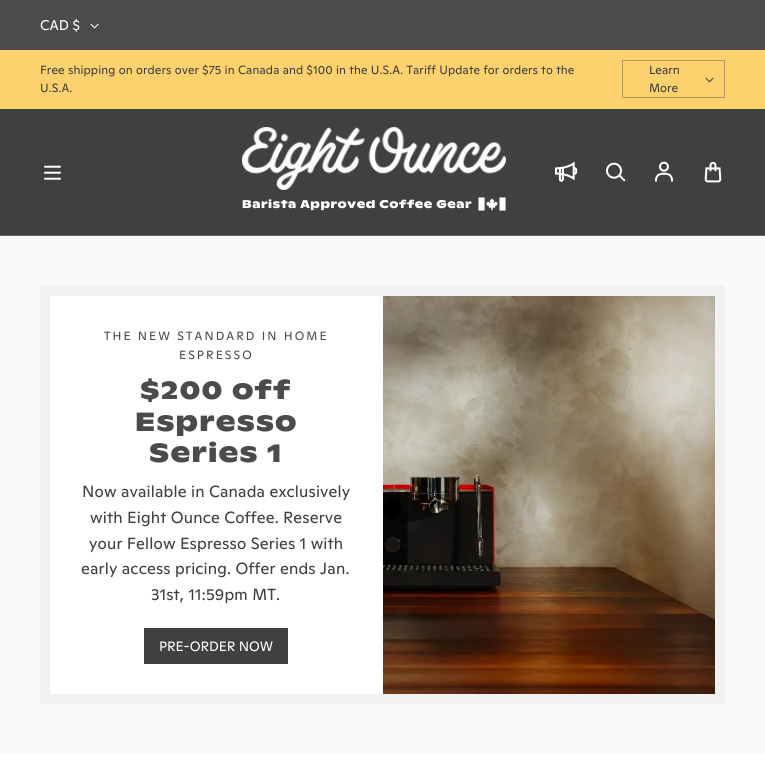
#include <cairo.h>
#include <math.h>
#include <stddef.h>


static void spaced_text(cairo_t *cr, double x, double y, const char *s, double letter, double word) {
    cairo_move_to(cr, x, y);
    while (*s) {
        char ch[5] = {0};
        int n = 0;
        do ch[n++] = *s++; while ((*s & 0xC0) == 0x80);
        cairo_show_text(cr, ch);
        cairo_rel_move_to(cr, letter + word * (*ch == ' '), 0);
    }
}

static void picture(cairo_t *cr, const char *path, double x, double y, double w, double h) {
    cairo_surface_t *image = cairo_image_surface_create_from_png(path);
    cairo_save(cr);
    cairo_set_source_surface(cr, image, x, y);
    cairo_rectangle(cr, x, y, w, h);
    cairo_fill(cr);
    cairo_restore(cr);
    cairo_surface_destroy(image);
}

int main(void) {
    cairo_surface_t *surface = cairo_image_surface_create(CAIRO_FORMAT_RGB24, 765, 782);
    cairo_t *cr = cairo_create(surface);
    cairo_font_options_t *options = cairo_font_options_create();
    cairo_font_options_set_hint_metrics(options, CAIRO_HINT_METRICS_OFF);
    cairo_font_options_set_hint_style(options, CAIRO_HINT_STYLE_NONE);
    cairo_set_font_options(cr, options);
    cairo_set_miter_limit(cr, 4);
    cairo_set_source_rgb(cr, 1, 1, 1);
    cairo_paint(cr);
    cairo_set_source_rgb(cr, 0.302, 0.294, 0.286);
    cairo_rectangle(cr, 0, 0, 765, 50);
    cairo_fill(cr);
    cairo_select_font_face(cr, "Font", CAIRO_FONT_SLANT_NORMAL, CAIRO_FONT_WEIGHT_NORMAL);
    cairo_set_font_size(cr, 14);
    cairo_set_source_rgb(cr, 1, 1, 1);
    cairo_move_to(cr, 40, 30);
    cairo_show_text(cr, "CAD $");
    picture(cr, "img1.png", 90, 23, 9, 6);
    cairo_set_source_rgb(cr, 0.992, 0.824, 0.431);
    cairo_rectangle(cr, 0, 50, 765, 59);
    cairo_fill(cr);
    cairo_set_font_size(cr, 11.9);
    cairo_set_source_rgb(cr, 0.251, 0.251, 0.251);
    spaced_text(cr, 40, 74, "Free shipping on orders over $75 in Canada and $100 in the U.S.A. Tariff Update for orders to the", 0.12, 0);
    cairo_rectangle(cr, 622.5, 60.5, 102, 37);
    cairo_set_source_rgb(cr, 0.694, 0.596, 0.361);
    cairo_set_line_width(cr, 1);
    cairo_stroke(cr);
    cairo_set_font_size(cr, 12);
    cairo_set_source_rgb(cr, 0.251, 0.251, 0.251);
    cairo_move_to(cr, 649, 74);
    cairo_show_text(cr, "Learn");
    cairo_move_to(cr, 649, 92);
    cairo_show_text(cr, "More");
    picture(cr, "img2.png", 705, 77, 9, 6);
    cairo_set_font_size(cr, 11.9);
    spaced_text(cr, 40, 92, "U.S.A.", 0.12, 0);
    cairo_rectangle(cr, 0, 109, 765, 126);
    cairo_fill(cr);
    cairo_set_source_rgb(cr, 0.4, 0.4, 0.4);
    cairo_rectangle(cr, 0, 235, 765, 1);
    cairo_fill(cr);
    picture(cr, "img3.png", 44, 165, 17, 15);
    picture(cr, "img4.png", 555, 162, 23, 20);
    picture(cr, "img5.png", 606, 162, 20, 20);
    picture(cr, "img6.png", 655, 161, 18, 21);
    picture(cr, "img7.png", 704, 161, 18, 22);
    picture(cr, "img8.png", 242, 127, 264, 63);
    cairo_select_font_face(cr, "Font", CAIRO_FONT_SLANT_NORMAL, CAIRO_FONT_WEIGHT_BOLD);
    cairo_set_font_size(cr, 11.2);
    cairo_set_source_rgb(cr, 1, 1, 1);
    spaced_text(cr, 242, 208, "Barista Approved Coffee Gear", 0.55, 0);
    picture(cr, "img9.png", 478, 197, 28, 14);
    cairo_set_source_rgb(cr, 0.976, 0.976, 0.976);
    cairo_rectangle(cr, 0, 237, 765, 517);
    cairo_fill(cr);
    cairo_set_source_rgb(cr, 0.98, 0.98, 0.98);
    cairo_rectangle(cr, 0, 236, 765, 1);
    cairo_fill(cr);
    cairo_set_source_rgb(cr, 0.945, 0.945, 0.945);
    cairo_rectangle(cr, 40, 286, 685, 418);
    cairo_fill(cr);
    cairo_set_source_rgb(cr, 1, 1, 1);
    cairo_rectangle(cr, 50, 296, 333, 398);
    cairo_fill(cr);
    cairo_select_font_face(cr, "Font", CAIRO_FONT_SLANT_NORMAL, CAIRO_FONT_WEIGHT_NORMAL);
    cairo_set_font_size(cr, 11.9);
    cairo_set_source_rgb(cr, 0.302, 0.294, 0.286);
    spaced_text(cr, 104, 340, "THE NEW STANDARD IN HOME", 2.1, 0);
    spaced_text(cr, 179, 359, "ESPRESSO", 2.1, 0);
    cairo_select_font_face(cr, "Font", CAIRO_FONT_SLANT_NORMAL, CAIRO_FONT_WEIGHT_BOLD);
    cairo_set_font_size(cr, 26.25);
    spaced_text(cr, 140, 399, "$200 off", 1.25, 0);
    spaced_text(cr, 135, 431, "Espresso", 1.25, 0);
    spaced_text(cr, 149, 462, "Series 1", 1.25, 0);
    cairo_select_font_face(cr, "Font", CAIRO_FONT_SLANT_NORMAL, CAIRO_FONT_WEIGHT_NORMAL);
    cairo_set_font_size(cr, 16.1);
    cairo_set_source_rgb(cr, 0.251, 0.251, 0.251);
    spaced_text(cr, 82, 497, "Now available in Canada exclusively", 0.15, 0);
    spaced_text(cr, 90, 523, "with Eight Ounce Coffee. Reserve", 0.15, 0);
    spaced_text(cr, 89, 549, "your Fellow Espresso Series 1 with", 0.15, 0);
    spaced_text(cr, 81, 574, "early access pricing. Offer ends Jan.", 0.15, 0);
    spaced_text(cr, 151, 600, "31st, 11:59pm MT.", 0.15, 0);
    cairo_rectangle(cr, 144, 628, 144, 36);
    cairo_fill(cr);
    cairo_set_font_size(cr, 13.5);
    cairo_set_source_rgb(cr, 1, 1, 1);
    cairo_move_to(cr, 159, 651);
    cairo_show_text(cr, "PRE-ORDER NOW");
    picture(cr, "img10.png", 383, 296, 332, 398);
    cairo_surface_write_to_png(surface, "page.png");
    cairo_font_options_destroy(options);
    cairo_destroy(cr);
    cairo_surface_destroy(surface);
    return 0;
}
